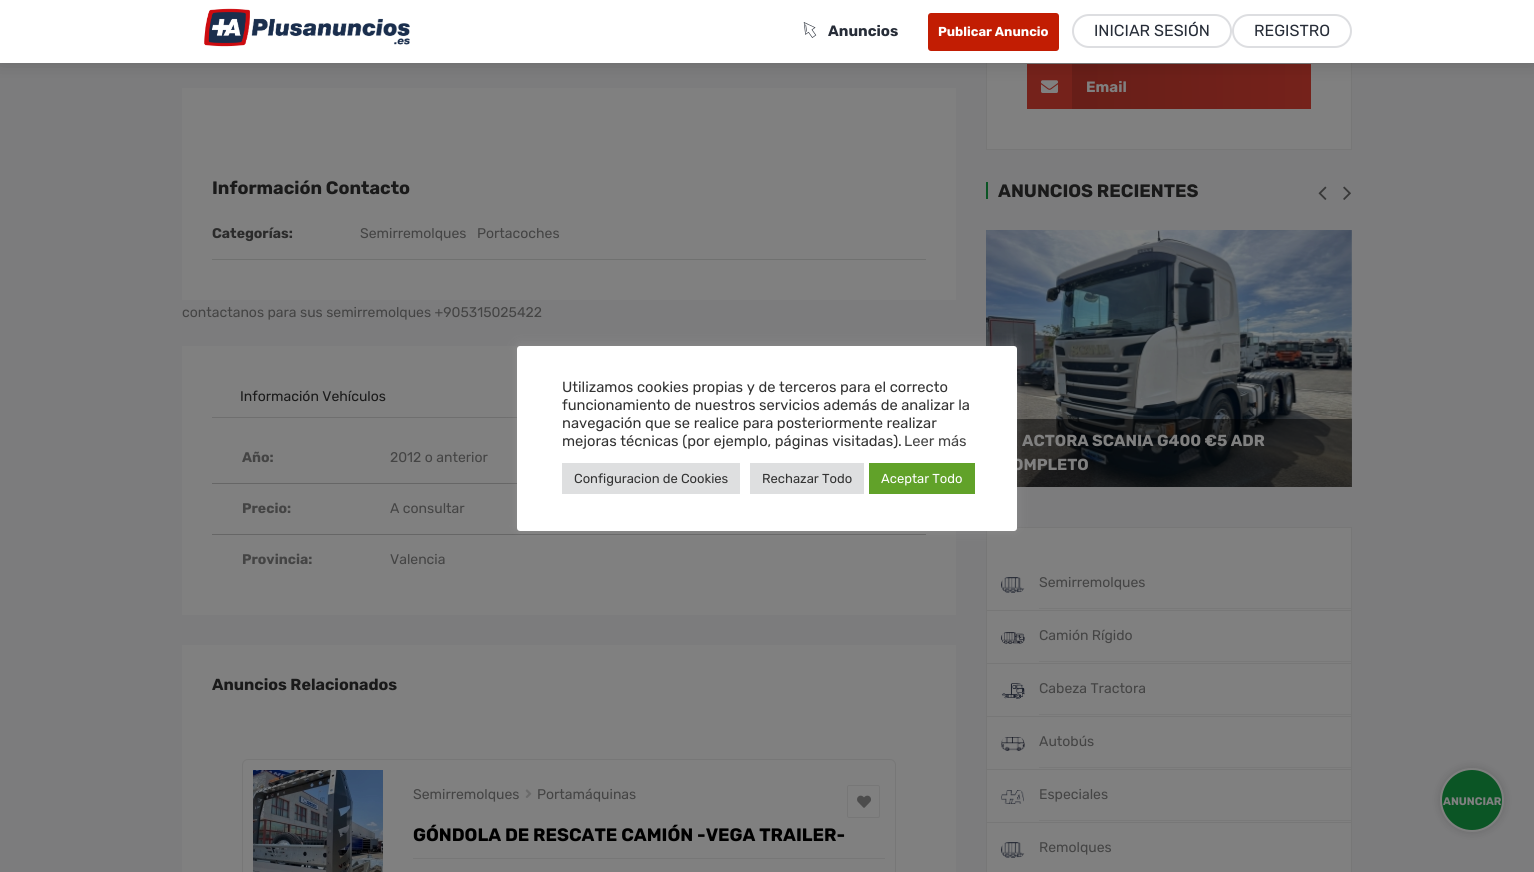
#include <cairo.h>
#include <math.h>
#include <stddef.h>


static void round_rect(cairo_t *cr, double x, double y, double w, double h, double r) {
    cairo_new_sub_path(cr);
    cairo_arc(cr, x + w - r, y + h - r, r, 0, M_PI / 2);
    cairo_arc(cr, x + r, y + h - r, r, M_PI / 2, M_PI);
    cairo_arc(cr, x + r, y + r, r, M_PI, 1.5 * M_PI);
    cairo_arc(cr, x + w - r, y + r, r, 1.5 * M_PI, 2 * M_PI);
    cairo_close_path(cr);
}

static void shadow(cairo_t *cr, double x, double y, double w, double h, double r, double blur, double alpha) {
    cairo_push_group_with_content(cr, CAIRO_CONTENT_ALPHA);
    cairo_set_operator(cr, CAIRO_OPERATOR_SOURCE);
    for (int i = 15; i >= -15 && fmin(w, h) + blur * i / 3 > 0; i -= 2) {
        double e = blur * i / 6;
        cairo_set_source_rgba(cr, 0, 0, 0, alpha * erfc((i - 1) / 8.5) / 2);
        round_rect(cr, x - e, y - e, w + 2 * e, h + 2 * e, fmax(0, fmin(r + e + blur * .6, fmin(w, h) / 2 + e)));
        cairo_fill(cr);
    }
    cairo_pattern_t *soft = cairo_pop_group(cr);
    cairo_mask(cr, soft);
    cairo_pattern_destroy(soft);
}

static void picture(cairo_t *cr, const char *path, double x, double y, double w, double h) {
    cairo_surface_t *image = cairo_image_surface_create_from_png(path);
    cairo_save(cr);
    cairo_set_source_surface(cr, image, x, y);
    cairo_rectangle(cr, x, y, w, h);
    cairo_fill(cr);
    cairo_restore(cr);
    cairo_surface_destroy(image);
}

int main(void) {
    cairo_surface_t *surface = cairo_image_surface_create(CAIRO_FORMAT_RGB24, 1534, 872);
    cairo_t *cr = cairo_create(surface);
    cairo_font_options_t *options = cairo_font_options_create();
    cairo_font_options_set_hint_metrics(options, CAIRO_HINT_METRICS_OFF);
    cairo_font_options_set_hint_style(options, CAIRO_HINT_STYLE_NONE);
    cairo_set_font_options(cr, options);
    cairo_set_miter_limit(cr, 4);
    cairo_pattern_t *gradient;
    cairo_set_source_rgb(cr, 0.486, 0.486, 0.49);
    cairo_paint(cr);
    cairo_set_source_rgb(cr, 0.502, 0.502, 0.502);
    cairo_rectangle(cr, 182, 88, 774, 212);
    cairo_fill(cr);
    cairo_rectangle(cr, 987, 63, 364, 86);
    cairo_fill(cr);
    cairo_rectangle(cr, 986.5, -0.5, 365, 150);
    cairo_set_source_rgb(cr, 0.467, 0.467, 0.467);
    cairo_set_line_width(cr, 1);
    cairo_stroke(cr);
    cairo_set_source_rgb(cr, 0.459, 0.133, 0.106);
    cairo_rectangle(cr, 1027, 64, 45, 45);
    cairo_fill(cr);
    picture(cr, "img6.png", 1041, 80, 17, 13);
    gradient = cairo_pattern_create_linear(1072, 87, 1311, 86);
    cairo_pattern_add_color_stop_rgba(gradient, 0, 0.404, 0.118, 0.094, 1);
    cairo_pattern_add_color_stop_rgba(gradient, 1, 0.459, 0.133, 0.106, 1);
    cairo_set_source(cr, gradient);
    cairo_pattern_destroy(gradient);
    cairo_rectangle(cr, 1072, 64, 239, 45);
    cairo_fill(cr);
    cairo_set_source_rgb(cr, 0, 0, 0);
    shadow(cr, 0, 0, 1534, 63, 0, 10, 0.15);
    cairo_set_source_rgb(cr, 1, 1, 1);
    cairo_rectangle(cr, 0, 0, 1534, 63);
    cairo_fill(cr);
    picture(cr, "img1.png", 204, 8, 206, 39);
    picture(cr, "img2.png", 803, 22, 14, 16);
    cairo_select_font_face(cr, "Rubik", CAIRO_FONT_SLANT_NORMAL, CAIRO_FONT_WEIGHT_BOLD);
    cairo_set_font_size(cr, 15);
    cairo_set_source_rgb(cr, 0.153, 0.176, 0.22);
    cairo_move_to(cr, 828, 36);
    cairo_show_text(cr, "Anuncios");
    cairo_set_source_rgb(cr, 0.761, 0.114, 0.012);
    round_rect(cr, 928, 13, 131, 38, 3);
    cairo_fill(cr);
    cairo_set_font_size(cr, 13);
    cairo_set_source_rgb(cr, 1, 1, 1);
    cairo_move_to(cr, 938, 36);
    cairo_show_text(cr, "Publicar Anuncio");
    round_rect(cr, 1073, 15, 158, 32, 16);
    cairo_set_source_rgb(cr, 0.867, 0.871, 0.882);
    cairo_set_line_width(cr, 2);
    cairo_stroke(cr);
    cairo_select_font_face(cr, "Rubik", CAIRO_FONT_SLANT_NORMAL, CAIRO_FONT_WEIGHT_NORMAL);
    cairo_set_font_size(cr, 16);
    cairo_set_source_rgb(cr, 0.153, 0.176, 0.22);
    cairo_move_to(cr, 1094, 36);
    cairo_show_text(cr, "INICIAR SESIÓN");
    round_rect(cr, 1233, 15, 118, 32, 16);
    cairo_set_source_rgb(cr, 0.867, 0.871, 0.882);
    cairo_stroke(cr);
    cairo_set_source_rgb(cr, 0.153, 0.176, 0.22);
    cairo_move_to(cr, 1254, 36);
    cairo_show_text(cr, "REGISTRO");
    cairo_select_font_face(cr, "Rubik", CAIRO_FONT_SLANT_NORMAL, CAIRO_FONT_WEIGHT_BOLD);
    cairo_set_font_size(cr, 18);
    cairo_set_source_rgb(cr, 0.102, 0.102, 0.102);
    cairo_move_to(cr, 212, 194);
    cairo_show_text(cr, "Información Contacto");
    cairo_set_source_rgb(cr, 0.439, 0.443, 0.439);
    cairo_rectangle(cr, 212, 259, 714, 1);
    cairo_fill(cr);
    cairo_set_font_size(cr, 14);
    cairo_set_source_rgb(cr, 0.169, 0.169, 0.169);
    cairo_move_to(cr, 212, 238);
    cairo_show_text(cr, "Categorías:");
    cairo_select_font_face(cr, "Rubik", CAIRO_FONT_SLANT_NORMAL, CAIRO_FONT_WEIGHT_NORMAL);
    cairo_set_source_rgb(cr, 0.267, 0.267, 0.267);
    cairo_move_to(cr, 360, 238);
    cairo_show_text(cr, "Semirremolques");
    cairo_move_to(cr, 477, 238);
    cairo_show_text(cr, "Portacoches");
    cairo_move_to(cr, 182, 317);
    cairo_show_text(cr, "contactanos para sus semirremolques +905315025422");
    cairo_set_source_rgb(cr, 0.502, 0.502, 0.502);
    cairo_rectangle(cr, 182, 346, 774, 269);
    cairo_fill(cr);
    cairo_set_source_rgb(cr, 0.435, 0.435, 0.435);
    cairo_rectangle(cr, 212, 417, 305, 1);
    cairo_fill(cr);
    cairo_set_source_rgb(cr, 0.102, 0.102, 0.102);
    cairo_move_to(cr, 240, 401);
    cairo_show_text(cr, "Información Vehículos");
    cairo_set_source_rgb(cr, 0.4, 0.4, 0.4);
    cairo_rectangle(cr, 212, 483, 305, 1);
    cairo_fill(cr);
    cairo_select_font_face(cr, "Rubik", CAIRO_FONT_SLANT_NORMAL, CAIRO_FONT_WEIGHT_BOLD);
    cairo_set_source_rgb(cr, 0.267, 0.267, 0.267);
    cairo_move_to(cr, 242, 462);
    cairo_show_text(cr, "Año:");
    cairo_select_font_face(cr, "Rubik", CAIRO_FONT_SLANT_NORMAL, CAIRO_FONT_WEIGHT_NORMAL);
    cairo_move_to(cr, 390, 462);
    cairo_show_text(cr, "2012 o anterior");
    cairo_set_source_rgb(cr, 0.4, 0.4, 0.4);
    cairo_rectangle(cr, 212, 534, 714, 1);
    cairo_fill(cr);
    cairo_select_font_face(cr, "Rubik", CAIRO_FONT_SLANT_NORMAL, CAIRO_FONT_WEIGHT_BOLD);
    cairo_set_source_rgb(cr, 0.267, 0.267, 0.267);
    cairo_move_to(cr, 242, 513);
    cairo_show_text(cr, "Precio:");
    cairo_select_font_face(cr, "Rubik", CAIRO_FONT_SLANT_NORMAL, CAIRO_FONT_WEIGHT_NORMAL);
    cairo_move_to(cr, 390, 513);
    cairo_show_text(cr, "A consultar");
    cairo_select_font_face(cr, "Rubik", CAIRO_FONT_SLANT_NORMAL, CAIRO_FONT_WEIGHT_BOLD);
    cairo_move_to(cr, 242, 564);
    cairo_show_text(cr, "Provincia:");
    cairo_select_font_face(cr, "Rubik", CAIRO_FONT_SLANT_NORMAL, CAIRO_FONT_WEIGHT_NORMAL);
    cairo_move_to(cr, 390, 564);
    cairo_show_text(cr, "Valencia");
    cairo_set_source_rgb(cr, 0.502, 0.502, 0.502);
    cairo_rectangle(cr, 182, 645, 774, 227);
    cairo_fill(cr);
    cairo_select_font_face(cr, "Rubik", CAIRO_FONT_SLANT_NORMAL, CAIRO_FONT_WEIGHT_BOLD);
    cairo_set_font_size(cr, 16);
    cairo_set_source_rgb(cr, 0.102, 0.102, 0.102);
    cairo_move_to(cr, 212, 690);
    cairo_show_text(cr, "Anuncios Relacionados");
    round_rect(cr, 242.5, 759.5, 653, 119, 5.5);
    cairo_set_source_rgb(cr, 0.467, 0.467, 0.467);
    cairo_set_line_width(cr, 1);
    cairo_stroke(cr);
    picture(cr, "img3.png", 253, 770, 130, 102);
    cairo_select_font_face(cr, "Rubik", CAIRO_FONT_SLANT_NORMAL, CAIRO_FONT_WEIGHT_NORMAL);
    cairo_set_font_size(cr, 14);
    cairo_set_source_rgb(cr, 0.267, 0.267, 0.267);
    cairo_move_to(cr, 413, 799);
    cairo_show_text(cr, "Semirremolques");
    picture(cr, "img4.png", 525, 789, 7, 9);
    cairo_move_to(cr, 537, 799);
    cairo_show_text(cr, "Portamáquinas");
    round_rect(cr, 847.5, 785.5, 32, 32, 1.5);
    cairo_set_source_rgb(cr, 0.467, 0.467, 0.467);
    cairo_stroke(cr);
    picture(cr, "img5.png", 857, 795, 14, 13);
    cairo_select_font_face(cr, "Rubik", CAIRO_FONT_SLANT_NORMAL, CAIRO_FONT_WEIGHT_BOLD);
    cairo_set_font_size(cr, 18);
    cairo_set_source_rgb(cr, 0, 0, 0);
    cairo_move_to(cr, 413, 841);
    cairo_show_text(cr, "GÓNDOLA DE RESCATE CAMIÓN -VEGA TRAILER-");
    cairo_set_source_rgb(cr, 0.467, 0.467, 0.467);
    cairo_rectangle(cr, 413, 858, 472, 1);
    cairo_fill(cr);
    cairo_set_font_size(cr, 15);
    cairo_set_source_rgb(cr, 0.502, 0.502, 0.502);
    cairo_move_to(cr, 1086, 92);
    cairo_show_text(cr, "Email");
    cairo_set_source_rgb(cr, 0.043, 0.333, 0.145);
    cairo_rectangle(cr, 986, 182, 2, 17);
    cairo_fill(cr);
    cairo_set_font_size(cr, 18);
    cairo_set_source_rgb(cr, 0.102, 0.102, 0.102);
    cairo_move_to(cr, 998, 197);
    cairo_show_text(cr, "ANUNCIOS RECIENTES");
    picture(cr, "img7.png", 1318, 186, 9, 14);
    picture(cr, "img8.png", 1343, 186, 8, 14);
    picture(cr, "img9.png", 986, 230, 366, 257);
    cairo_set_source_rgba(cr, 0, 0, 0, 0.5);
    cairo_rectangle(cr, 1017, 419, 335, 68);
    cairo_fill(cr);
    cairo_set_font_size(cr, 16);
    cairo_set_source_rgb(cr, 0.502, 0.502, 0.502);
    cairo_move_to(cr, 1022, 446);
    cairo_show_text(cr, "ACTORA SCANIA G400 €5 ADR");
    cairo_move_to(cr, 1012, 470);
    cairo_show_text(cr, "OMPLETO");
    cairo_rectangle(cr, 986.5, 527.5, 365, 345);
    cairo_fill_preserve(cr);
    cairo_set_source_rgb(cr, 0.467, 0.467, 0.467);
    cairo_stroke(cr);
    cairo_rectangle(cr, 987, 610, 364, 1);
    cairo_fill(cr);
    picture(cr, "img10.png", 1001, 577, 24, 16);
    cairo_set_source_rgb(cr, 0.475, 0.475, 0.475);
    cairo_rectangle(cr, 1039, 608, 312, 1);
    cairo_fill(cr);
    cairo_select_font_face(cr, "Rubik", CAIRO_FONT_SLANT_NORMAL, CAIRO_FONT_WEIGHT_NORMAL);
    cairo_set_font_size(cr, 14);
    cairo_set_source_rgb(cr, 0.267, 0.267, 0.267);
    cairo_move_to(cr, 1039, 587);
    cairo_show_text(cr, "Semirremolques");
    cairo_set_source_rgb(cr, 0.467, 0.467, 0.467);
    cairo_rectangle(cr, 987, 663, 364, 1);
    cairo_fill(cr);
    picture(cr, "img11.png", 1001, 632, 24, 12);
    cairo_set_source_rgb(cr, 0.475, 0.475, 0.475);
    cairo_rectangle(cr, 1039, 661, 312, 1);
    cairo_fill(cr);
    cairo_set_source_rgb(cr, 0.267, 0.267, 0.267);
    cairo_move_to(cr, 1039, 640);
    cairo_show_text(cr, "Camión Rígido");
    cairo_set_source_rgb(cr, 0.467, 0.467, 0.467);
    cairo_rectangle(cr, 987, 716, 364, 1);
    cairo_fill(cr);
    picture(cr, "img12.png", 1001, 683, 24, 16);
    cairo_set_source_rgb(cr, 0.475, 0.475, 0.475);
    cairo_rectangle(cr, 1039, 714, 312, 1);
    cairo_fill(cr);
    cairo_set_source_rgb(cr, 0.267, 0.267, 0.267);
    cairo_move_to(cr, 1039, 693);
    cairo_show_text(cr, "Cabeza Tractora");
    cairo_set_source_rgb(cr, 0.467, 0.467, 0.467);
    cairo_rectangle(cr, 987, 769, 364, 1);
    cairo_fill(cr);
    picture(cr, "img13.png", 1001, 737, 24, 14);
    cairo_set_source_rgb(cr, 0.475, 0.475, 0.475);
    cairo_rectangle(cr, 1039, 767, 312, 1);
    cairo_fill(cr);
    cairo_set_source_rgb(cr, 0.267, 0.267, 0.267);
    cairo_move_to(cr, 1039, 746);
    cairo_show_text(cr, "Autobús");
    cairo_set_source_rgb(cr, 0.467, 0.467, 0.467);
    cairo_rectangle(cr, 987, 822, 364, 1);
    cairo_fill(cr);
    picture(cr, "img14.png", 1001, 790, 23, 14);
    cairo_set_source_rgb(cr, 0.475, 0.475, 0.475);
    cairo_rectangle(cr, 1039, 820, 312, 1);
    cairo_fill(cr);
    cairo_set_source_rgb(cr, 0.267, 0.267, 0.267);
    cairo_move_to(cr, 1039, 799);
    cairo_show_text(cr, "Especiales");
    picture(cr, "img10.png", 1001, 842, 24, 16);
    cairo_move_to(cr, 1039, 852);
    cairo_show_text(cr, "Remolques");
    cairo_set_source_rgb(cr, 0, 0, 0);
    shadow(cr, 1440, 768, 64, 64, 32, 5, 0.15);
    cairo_set_source_rgb(cr, 0.043, 0.333, 0.145);
    cairo_arc(cr, 1472, 800, 31, 0, 2 * M_PI);
    cairo_fill_preserve(cr);
    cairo_set_source_rgb(cr, 0.502, 0.502, 0.502);
    cairo_set_line_width(cr, 2);
    cairo_stroke(cr);
    cairo_select_font_face(cr, "Rubik", CAIRO_FONT_SLANT_NORMAL, CAIRO_FONT_WEIGHT_BOLD);
    cairo_set_font_size(cr, 11);
    cairo_move_to(cr, 1443, 805);
    cairo_show_text(cr, "ANUNCIAR");
    cairo_set_source_rgb(cr, 0.675, 0.671, 0.671);
    shadow(cr, 517, 345, 500, 185, 3, 5, 0.3);
    cairo_set_source_rgb(cr, 1, 1, 1);
    round_rect(cr, 517, 346, 500, 185, 3);
    cairo_fill(cr);
    cairo_select_font_face(cr, "Rubik", CAIRO_FONT_SLANT_NORMAL, CAIRO_FONT_WEIGHT_NORMAL);
    cairo_set_font_size(cr, 14.7);
    cairo_set_source_rgb(cr, 0.2, 0.2, 0.2);
    cairo_move_to(cr, 562, 392);
    cairo_show_text(cr, "Utilizamos cookies propias y de terceros para el correcto");
    cairo_move_to(cr, 562, 410);
    cairo_show_text(cr, "funcionamiento de nuestros servicios además de analizar la");
    cairo_move_to(cr, 562, 428);
    cairo_show_text(cr, "navegación que se realice para posteriormente realizar");
    cairo_move_to(cr, 562, 446);
    cairo_show_text(cr, "mejoras técnicas (por ejemplo, páginas visitadas).");
    cairo_set_source_rgb(cr, 0.267, 0.267, 0.267);
    cairo_move_to(cr, 904, 446);
    cairo_show_text(cr, "Leer más");
    cairo_set_source_rgb(cr, 0.871, 0.875, 0.878);
    cairo_rectangle(cr, 562, 463, 178, 31);
    cairo_fill(cr);
    cairo_set_font_size(cr, 13);
    cairo_set_source_rgb(cr, 0.2, 0.2, 0.2);
    cairo_move_to(cr, 574, 483);
    cairo_show_text(cr, "Configuracion de Cookies");
    cairo_set_source_rgb(cr, 0.871, 0.875, 0.878);
    cairo_rectangle(cr, 750, 463, 114, 31);
    cairo_fill(cr);
    cairo_set_source_rgb(cr, 0.2, 0.2, 0.2);
    cairo_move_to(cr, 762, 483);
    cairo_show_text(cr, "Rechazar Todo");
    cairo_set_source_rgb(cr, 0.38, 0.635, 0.161);
    cairo_rectangle(cr, 869, 463, 106, 31);
    cairo_fill(cr);
    cairo_set_source_rgb(cr, 1, 1, 1);
    cairo_move_to(cr, 881, 483);
    cairo_show_text(cr, "Aceptar Todo");
    cairo_surface_write_to_png(surface, "page.png");
    cairo_font_options_destroy(options);
    cairo_destroy(cr);
    cairo_surface_destroy(surface);
    return 0;
}
